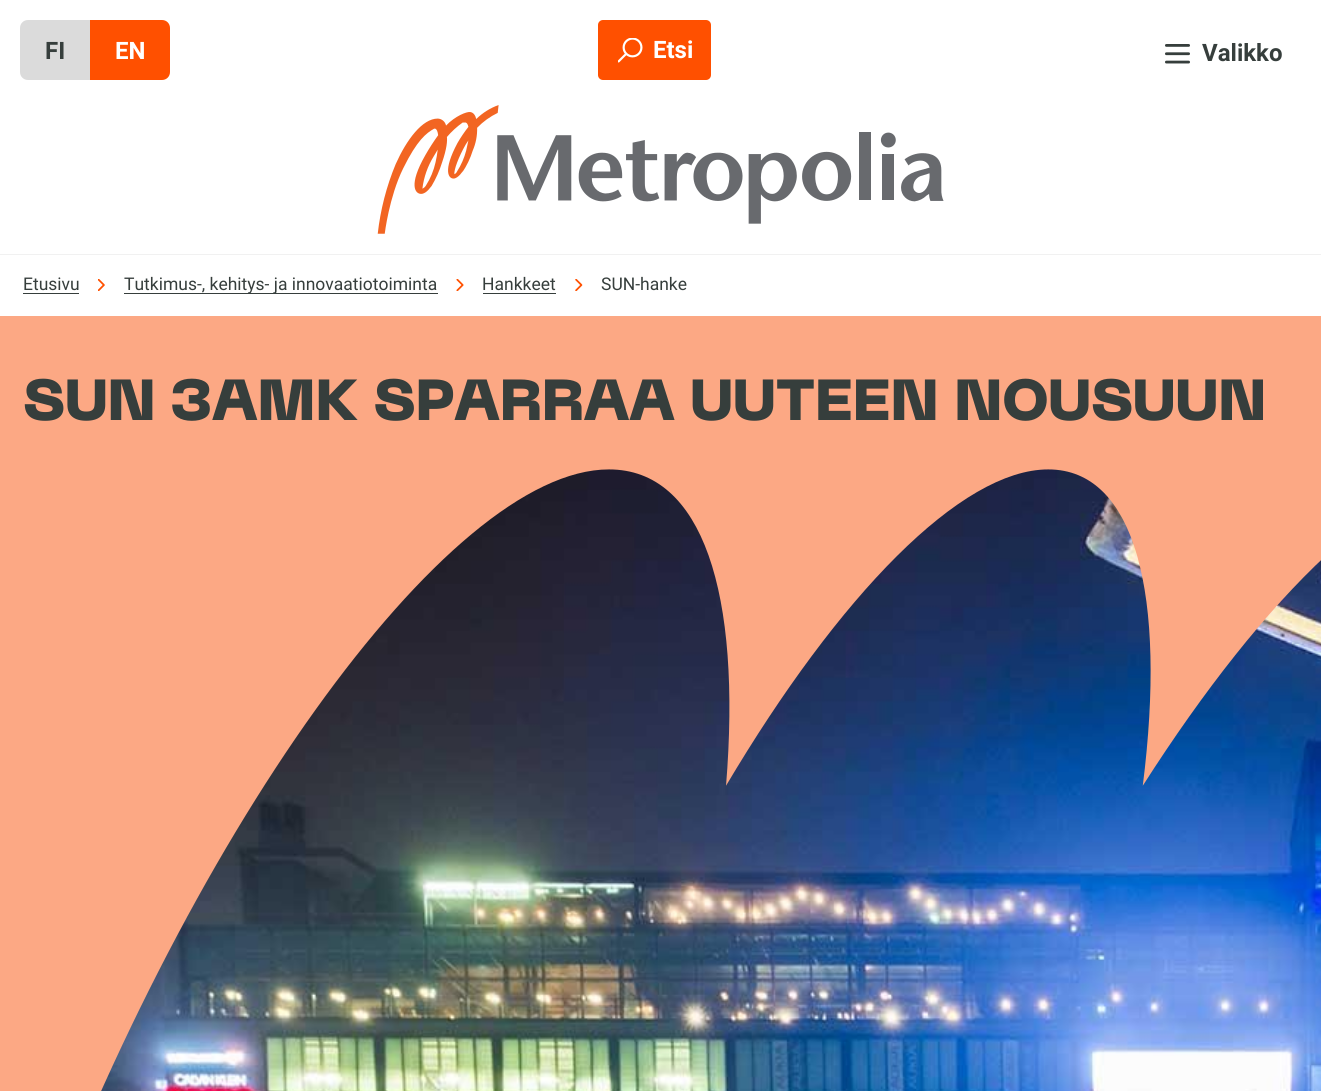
#include <cairo.h>
#include <math.h>
#include <stddef.h>


static void round_rect(cairo_t *cr, double x, double y, double w, double h, double r) {
    cairo_new_sub_path(cr);
    cairo_arc(cr, x + w - r, y + h - r, r, 0, M_PI / 2);
    cairo_arc(cr, x + r, y + h - r, r, M_PI / 2, M_PI);
    cairo_arc(cr, x + r, y + r, r, M_PI, 1.5 * M_PI);
    cairo_arc(cr, x + w - r, y + r, r, 1.5 * M_PI, 2 * M_PI);
    cairo_close_path(cr);
}

static void picture(cairo_t *cr, const char *path, double x, double y, double w, double h) {
    cairo_surface_t *image = cairo_image_surface_create_from_png(path);
    cairo_save(cr);
    cairo_set_source_surface(cr, image, x, y);
    cairo_rectangle(cr, x, y, w, h);
    cairo_fill(cr);
    cairo_restore(cr);
    cairo_surface_destroy(image);
}

int main(void) {
    cairo_surface_t *surface = cairo_image_surface_create(CAIRO_FORMAT_RGB24, 1321, 1091);
    cairo_t *cr = cairo_create(surface);
    cairo_font_options_t *options = cairo_font_options_create();
    cairo_font_options_set_hint_metrics(options, CAIRO_HINT_METRICS_OFF);
    cairo_font_options_set_hint_style(options, CAIRO_HINT_STYLE_NONE);
    cairo_set_font_options(cr, options);
    cairo_set_miter_limit(cr, 4);
    cairo_set_source_rgb(cr, 1, 1, 1);
    cairo_paint(cr);
    cairo_set_source_rgb(cr, 0.859, 0.859, 0.859);
    cairo_new_path(cr);
    cairo_move_to(cr, 28, 20);
    cairo_line_to(cr, 90, 20);
    cairo_line_to(cr, 90, 80);
    cairo_line_to(cr, 28, 80);
    cairo_curve_to(cr, 23.5, 80, 20, 76.5, 20, 72);
    cairo_line_to(cr, 20, 28);
    cairo_curve_to(cr, 20, 23.5, 23.5, 20, 28, 20);
    cairo_close_path(cr);
    cairo_fill(cr);
    cairo_select_font_face(cr, "Roboto", CAIRO_FONT_SLANT_NORMAL, CAIRO_FONT_WEIGHT_BOLD);
    cairo_set_font_size(cr, 24);
    cairo_set_source_rgb(cr, 0.212, 0.243, 0.235);
    cairo_move_to(cr, 45, 59);
    cairo_show_text(cr, "FI");
    cairo_set_source_rgb(cr, 1, 0.314, 0);
    cairo_new_path(cr);
    cairo_move_to(cr, 90, 20);
    cairo_line_to(cr, 162, 20);
    cairo_curve_to(cr, 166.5, 20, 170, 23.5, 170, 28);
    cairo_line_to(cr, 170, 72);
    cairo_curve_to(cr, 170, 76.5, 166.5, 80, 162, 80);
    cairo_line_to(cr, 90, 80);
    cairo_close_path(cr);
    cairo_fill(cr);
    cairo_set_source_rgb(cr, 1, 1, 1);
    cairo_move_to(cr, 115, 59);
    cairo_show_text(cr, "EN");
    cairo_set_source_rgb(cr, 1, 0.314, 0);
    round_rect(cr, 598, 20, 113, 60, 5);
    cairo_fill(cr);
    picture(cr, "img1.png", 618, 38, 25, 25);
    cairo_set_source_rgb(cr, 1, 1, 1);
    cairo_move_to(cr, 653, 58);
    cairo_show_text(cr, "Etsi");
    picture(cr, "img2.png", 1165, 44, 25, 20);
    cairo_set_source_rgb(cr, 0.212, 0.243, 0.235);
    cairo_move_to(cr, 1202, 61);
    cairo_show_text(cr, "Valikko");
    picture(cr, "img3.png", 377, 105, 567, 129);
    cairo_set_source_rgb(cr, 0.945, 0.945, 0.945);
    cairo_rectangle(cr, 0, 254, 1321, 1);
    cairo_fill(cr);
    picture(cr, "img4.png", 98, 279, 7, 12);
    cairo_select_font_face(cr, "Roboto", CAIRO_FONT_SLANT_NORMAL, CAIRO_FONT_WEIGHT_NORMAL);
    cairo_set_font_size(cr, 17.5);
    cairo_set_source_rgb(cr, 0.212, 0.243, 0.235);
    cairo_move_to(cr, 23, 290);
    cairo_show_text(cr, "Etusivu");
    cairo_rectangle(cr, 23, 293, 56, 1);
    cairo_fill(cr);
    picture(cr, "img5.png", 456, 279, 8, 12);
    cairo_rectangle(cr, 124, 293, 314, 1);
    cairo_fill(cr);
    cairo_move_to(cr, 124, 290);
    cairo_show_text(cr, "Tutkimus-, kehitys- ja innovaatiotoiminta");
    picture(cr, "img6.png", 575, 279, 8, 12);
    cairo_move_to(cr, 482, 290);
    cairo_show_text(cr, "Hankkeet");
    cairo_rectangle(cr, 483, 293, 73, 1);
    cairo_fill(cr);
    cairo_move_to(cr, 601, 290);
    cairo_show_text(cr, "SUN-hanke");
    cairo_set_source_rgb(cr, 0.988, 0.659, 0.518);
    cairo_rectangle(cr, 0, 316, 1321, 150);
    cairo_fill(cr);
    picture(cr, "img7.png", 101, 469, 1220, 622);
    cairo_select_font_face(cr, "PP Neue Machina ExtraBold", CAIRO_FONT_SLANT_NORMAL, CAIRO_FONT_WEIGHT_NORMAL);
    cairo_set_font_size(cr, 57.5);
    cairo_set_source_rgb(cr, 0.212, 0.243, 0.235);
    cairo_move_to(cr, 23, 420);
    cairo_show_text(cr, "SUN 3AMK SPARRAA UUTEEN NOUSUUN");
    cairo_save(cr);
    cairo_rectangle(cr, 0, 466, 1321, 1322);
    cairo_clip(cr);
    cairo_rectangle(cr, -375, 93, 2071, 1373);
    cairo_set_source_rgb(cr, 0.988, 0.659, 0.518);
    cairo_set_line_width(cr, 750);
    cairo_stroke(cr);
    cairo_restore(cr);
    picture(cr, "img8.png", 0, 468, 1321, 623);
    cairo_surface_write_to_png(surface, "page.png");
    cairo_font_options_destroy(options);
    cairo_destroy(cr);
    cairo_surface_destroy(surface);
    return 0;
}
